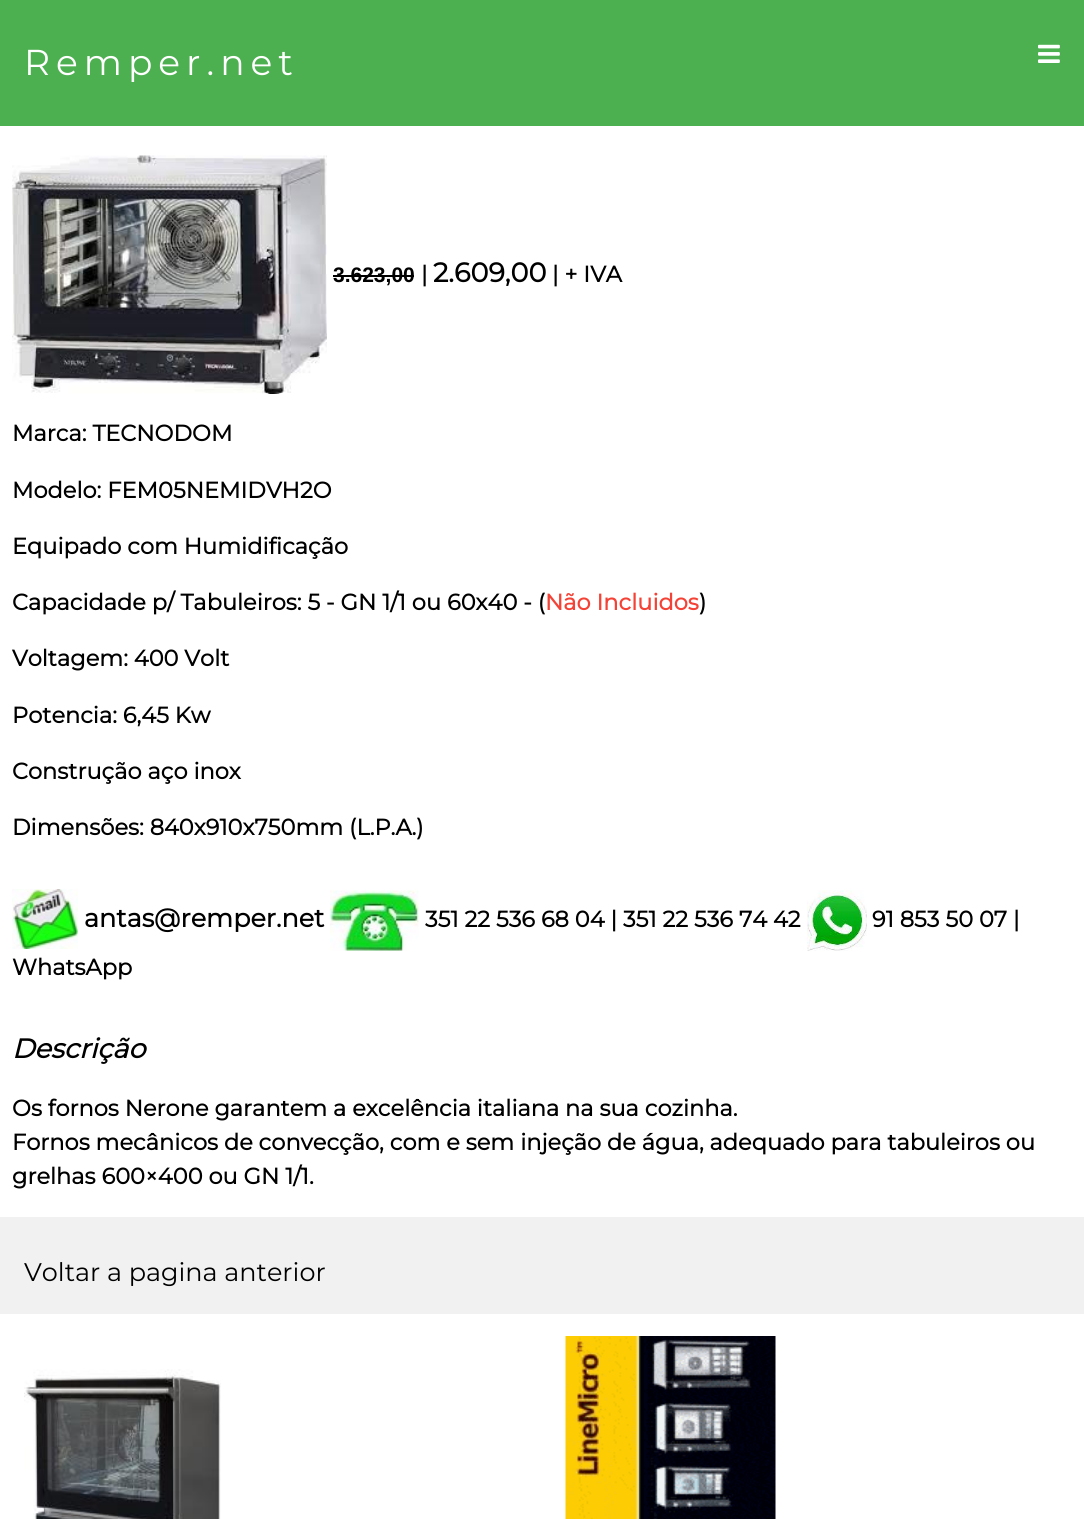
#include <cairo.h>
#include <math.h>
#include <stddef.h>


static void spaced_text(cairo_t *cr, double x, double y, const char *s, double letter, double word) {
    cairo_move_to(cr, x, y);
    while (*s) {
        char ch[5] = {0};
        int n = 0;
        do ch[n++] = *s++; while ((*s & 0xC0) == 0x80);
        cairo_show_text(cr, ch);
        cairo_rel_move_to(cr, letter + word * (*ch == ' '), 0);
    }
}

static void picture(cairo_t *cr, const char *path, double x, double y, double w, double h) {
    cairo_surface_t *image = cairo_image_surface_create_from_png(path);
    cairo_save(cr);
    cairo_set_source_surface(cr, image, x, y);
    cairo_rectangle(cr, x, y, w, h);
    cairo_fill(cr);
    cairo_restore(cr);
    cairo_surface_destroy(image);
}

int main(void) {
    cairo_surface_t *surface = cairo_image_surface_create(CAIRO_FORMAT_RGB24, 1084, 1519);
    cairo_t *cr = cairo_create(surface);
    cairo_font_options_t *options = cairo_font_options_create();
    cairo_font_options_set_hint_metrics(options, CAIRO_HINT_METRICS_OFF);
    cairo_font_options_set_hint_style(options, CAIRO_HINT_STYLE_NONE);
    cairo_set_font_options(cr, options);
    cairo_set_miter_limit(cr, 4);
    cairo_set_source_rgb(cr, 1, 1, 1);
    cairo_paint(cr);
    cairo_set_source_rgb(cr, 0.298, 0.686, 0.314);
    cairo_rectangle(cr, 0, 0, 1084, 126);
    cairo_fill(cr);
    cairo_select_font_face(cr, "Montserrat Thin", CAIRO_FONT_SLANT_NORMAL, CAIRO_FONT_WEIGHT_NORMAL);
    cairo_set_font_size(cr, 36);
    cairo_set_source_rgb(cr, 1, 1, 1);
    spaced_text(cr, 24, 75, "Remper.net", 6, 0);
    picture(cr, "img1.png", 1038, 44, 22, 19);
    picture(cr, "img2.png", 12, 155, 315, 239);
    cairo_select_font_face(cr, "Liberation Sans", CAIRO_FONT_SLANT_NORMAL, CAIRO_FONT_WEIGHT_BOLD);
    cairo_set_font_size(cr, 21);
    cairo_set_source_rgb(cr, 0, 0, 0);
    cairo_move_to(cr, 333, 282);
    cairo_show_text(cr, "3.623,00");
    cairo_rectangle(cr, 333, 275, 81, 2);
    cairo_fill(cr);
    cairo_select_font_face(cr, "Montserrat", CAIRO_FONT_SLANT_NORMAL, CAIRO_FONT_WEIGHT_BOLD);
    cairo_set_font_size(cr, 22.5);
    cairo_move_to(cr, 421, 282);
    cairo_show_text(cr, "|");
    cairo_set_font_size(cr, 27);
    cairo_move_to(cr, 433, 282);
    cairo_show_text(cr, "2.609,00");
    cairo_set_font_size(cr, 22.5);
    cairo_move_to(cr, 552, 282);
    cairo_show_text(cr, "| + IVA");
    cairo_move_to(cr, 12, 441);
    cairo_show_text(cr, "Marca: TECNODOM");
    cairo_move_to(cr, 12, 498);
    cairo_show_text(cr, "Modelo: FEM05NEMIDVH2O");
    cairo_move_to(cr, 12, 554);
    cairo_show_text(cr, "Equipado com Humidificação");
    cairo_move_to(cr, 12, 610);
    cairo_show_text(cr, "Capacidade p/ Tabuleiros: 5 - GN 1/1 ou 60x40 - (");
    cairo_set_source_rgb(cr, 0.957, 0.263, 0.212);
    cairo_move_to(cr, 545, 610);
    cairo_show_text(cr, "Não Incluidos");
    cairo_set_source_rgb(cr, 0, 0, 0);
    cairo_move_to(cr, 699, 610);
    cairo_show_text(cr, ")");
    cairo_move_to(cr, 12, 666);
    cairo_show_text(cr, "Voltagem: 400 Volt");
    cairo_move_to(cr, 12, 723);
    cairo_show_text(cr, "Potencia: 6,45 Kw");
    cairo_move_to(cr, 12, 779);
    cairo_show_text(cr, "Construção aço inox");
    cairo_move_to(cr, 12, 835);
    cairo_show_text(cr, "Dimensões: 840x910x750mm (L.P.A.)");
    picture(cr, "img3.png", 12, 889, 66, 60);
    cairo_set_font_size(cr, 25.5);
    cairo_move_to(cr, 84, 927);
    cairo_show_text(cr, "antas@remper.net");
    picture(cr, "img4.png", 330, 890, 89, 61);
    cairo_set_font_size(cr, 22.5);
    cairo_move_to(cr, 425, 927);
    cairo_show_text(cr, "351 22 536 68 04 | 351 22 536 74 42");
    picture(cr, "img5.png", 807, 890, 60, 61);
    cairo_move_to(cr, 872, 927);
    cairo_show_text(cr, "91 853 50 07 |");
    cairo_move_to(cr, 12, 975);
    cairo_show_text(cr, "WhatsApp");
    cairo_select_font_face(cr, "Montserrat", CAIRO_FONT_SLANT_ITALIC, CAIRO_FONT_WEIGHT_BOLD);
    cairo_set_font_size(cr, 27);
    cairo_move_to(cr, 12, 1058);
    cairo_show_text(cr, "Descrição");
    cairo_select_font_face(cr, "Montserrat", CAIRO_FONT_SLANT_NORMAL, CAIRO_FONT_WEIGHT_BOLD);
    cairo_set_font_size(cr, 22.5);
    cairo_move_to(cr, 12, 1116);
    cairo_show_text(cr, "Os fornos Nerone garantem a excelência italiana na sua cozinha.");
    cairo_move_to(cr, 12, 1150);
    cairo_show_text(cr, "Fornos mecânicos de convecção, com e sem injeção de água, adequado para tabuleiros ou");
    cairo_move_to(cr, 12, 1184);
    cairo_show_text(cr, "grelhas 600×400 ou GN 1/1.");
    cairo_set_source_rgb(cr, 0.945, 0.945, 0.945);
    cairo_rectangle(cr, 0, 1217, 1084, 97);
    cairo_fill(cr);
    cairo_select_font_face(cr, "Montserrat Thin", CAIRO_FONT_SLANT_NORMAL, CAIRO_FONT_WEIGHT_NORMAL);
    cairo_set_font_size(cr, 25.5);
    cairo_set_source_rgb(cr, 0, 0, 0);
    cairo_move_to(cr, 24, 1281);
    cairo_show_text(cr, "Voltar a pagina anterior");
    picture(cr, "img6.png", 24, 1369, 197, 150);
    picture(cr, "img7.png", 565, 1336, 211, 183);
    cairo_surface_write_to_png(surface, "page.png");
    cairo_font_options_destroy(options);
    cairo_destroy(cr);
    cairo_surface_destroy(surface);
    return 0;
}
